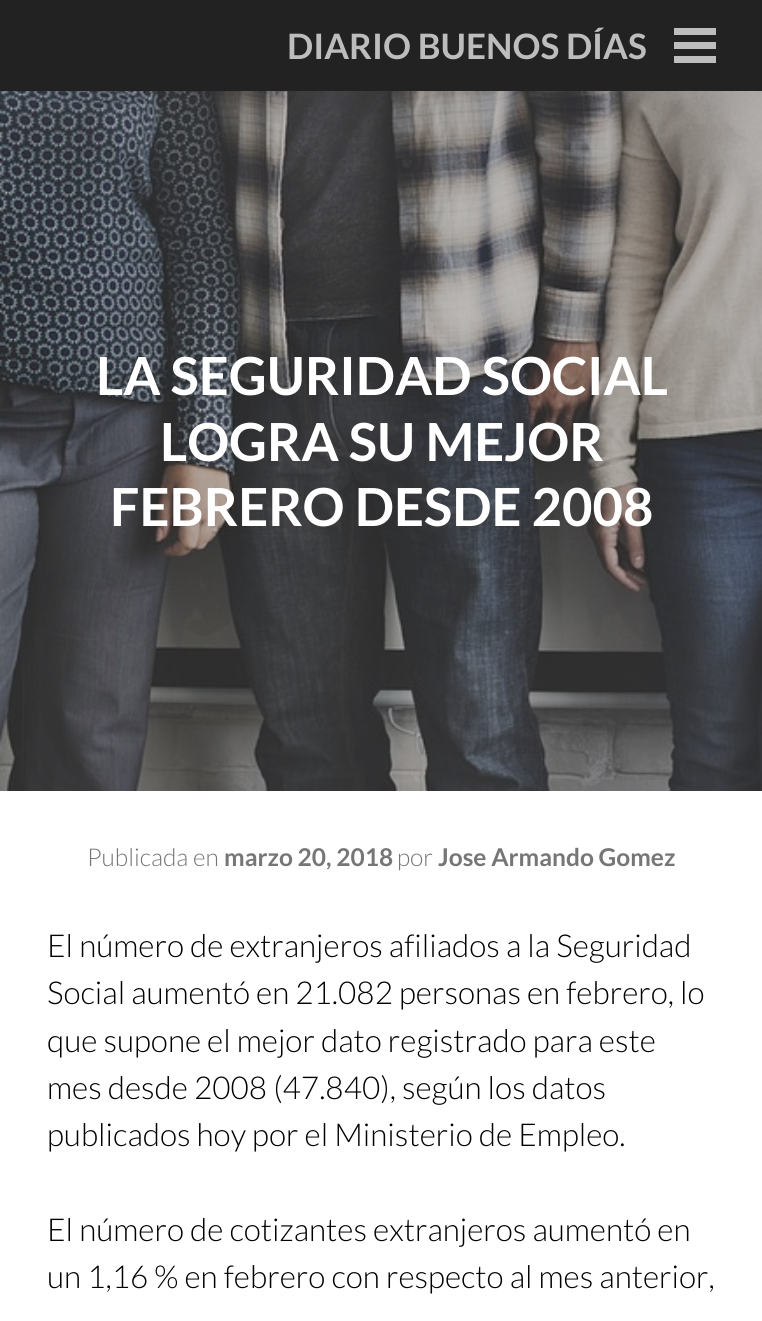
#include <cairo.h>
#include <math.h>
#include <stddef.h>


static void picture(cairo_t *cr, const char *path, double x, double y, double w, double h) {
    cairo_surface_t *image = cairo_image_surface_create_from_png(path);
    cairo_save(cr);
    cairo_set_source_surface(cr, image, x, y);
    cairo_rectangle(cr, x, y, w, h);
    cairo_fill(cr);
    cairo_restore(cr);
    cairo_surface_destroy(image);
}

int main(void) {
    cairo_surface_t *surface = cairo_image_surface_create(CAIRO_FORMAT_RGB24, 762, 1321);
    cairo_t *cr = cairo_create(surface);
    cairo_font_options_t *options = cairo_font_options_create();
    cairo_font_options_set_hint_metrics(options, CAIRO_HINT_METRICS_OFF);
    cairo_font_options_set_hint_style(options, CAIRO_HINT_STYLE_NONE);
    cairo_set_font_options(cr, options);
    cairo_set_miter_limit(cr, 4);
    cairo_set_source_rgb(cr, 1, 1, 1);
    cairo_paint(cr);
    cairo_set_source_rgb(cr, 0.133, 0.133, 0.133);
    cairo_rectangle(cr, 0, 0, 762, 91);
    cairo_fill(cr);
    cairo_select_font_face(cr, "Lato", CAIRO_FONT_SLANT_NORMAL, CAIRO_FONT_WEIGHT_BOLD);
    cairo_set_font_size(cr, 35);
    cairo_set_source_rgb(cr, 0.741, 0.741, 0.741);
    cairo_move_to(cr, 287, 59);
    cairo_show_text(cr, "DIARIO BUENOS DÍAS");
    cairo_rectangle(cr, 674, 42, 42, 7);
    cairo_fill(cr);
    cairo_rectangle(cr, 674, 28, 42, 7);
    cairo_fill(cr);
    cairo_rectangle(cr, 674, 56, 42, 7);
    cairo_fill(cr);
    picture(cr, "img1.png", 0, 91, 762, 700);
    cairo_set_font_size(cr, 52.5);
    cairo_set_source_rgb(cr, 1, 1, 1);
    cairo_move_to(cr, 96, 395);
    cairo_show_text(cr, "LA SEGURIDAD SOCIAL");
    cairo_move_to(cr, 160, 461);
    cairo_show_text(cr, "LOGRA SU MEJOR");
    cairo_move_to(cr, 110, 526);
    cairo_show_text(cr, "FEBRERO DESDE 2008");
    cairo_select_font_face(cr, "Lato Light", CAIRO_FONT_SLANT_NORMAL, CAIRO_FONT_WEIGHT_NORMAL);
    cairo_set_font_size(cr, 24.5);
    cairo_set_source_rgb(cr, 0.463, 0.463, 0.463);
    cairo_move_to(cr, 87, 866);
    cairo_show_text(cr, "Publicada en");
    cairo_select_font_face(cr, "Lato", CAIRO_FONT_SLANT_NORMAL, CAIRO_FONT_WEIGHT_BOLD);
    cairo_move_to(cr, 224, 866);
    cairo_show_text(cr, "marzo 20, 2018");
    cairo_select_font_face(cr, "Lato Light", CAIRO_FONT_SLANT_NORMAL, CAIRO_FONT_WEIGHT_NORMAL);
    cairo_move_to(cr, 397, 866);
    cairo_show_text(cr, "por");
    cairo_select_font_face(cr, "Lato", CAIRO_FONT_SLANT_NORMAL, CAIRO_FONT_WEIGHT_BOLD);
    cairo_move_to(cr, 438, 866);
    cairo_show_text(cr, "Jose Armando Gomez");
    cairo_select_font_face(cr, "Lato Light", CAIRO_FONT_SLANT_NORMAL, CAIRO_FONT_WEIGHT_NORMAL);
    cairo_set_font_size(cr, 31.5);
    cairo_set_source_rgb(cr, 0, 0, 0);
    cairo_move_to(cr, 47, 957);
    cairo_show_text(cr, "El número de extranjeros afiliados a la Seguridad");
    cairo_move_to(cr, 47, 1004);
    cairo_show_text(cr, "Social aumentó en 21.082 personas en febrero, lo");
    cairo_move_to(cr, 47, 1052);
    cairo_show_text(cr, "que supone el mejor dato registrado para este");
    cairo_move_to(cr, 47, 1099);
    cairo_show_text(cr, "mes desde 2008 (47.840), según los datos");
    cairo_move_to(cr, 47, 1146);
    cairo_show_text(cr, "publicados hoy por el Ministerio de Empleo.");
    cairo_move_to(cr, 47, 1241);
    cairo_show_text(cr, "El número de cotizantes extranjeros aumentó en");
    cairo_move_to(cr, 47, 1288);
    cairo_show_text(cr, "un 1,16 % en febrero con respecto al mes anterior,");
    cairo_surface_write_to_png(surface, "page.png");
    cairo_font_options_destroy(options);
    cairo_destroy(cr);
    cairo_surface_destroy(surface);
    return 0;
}
